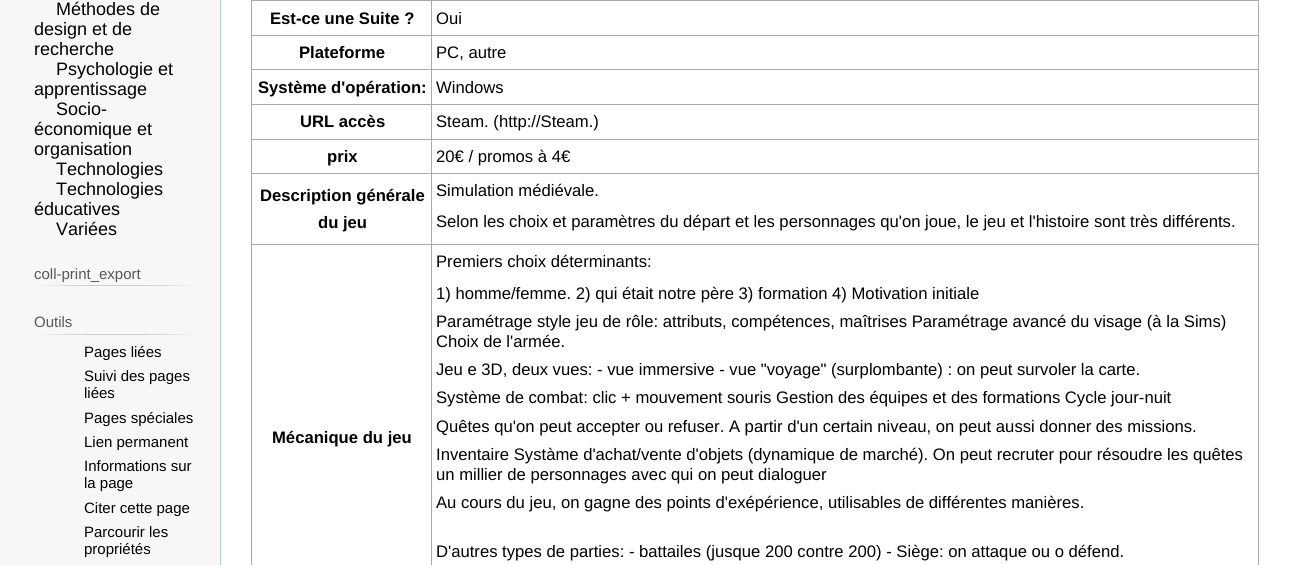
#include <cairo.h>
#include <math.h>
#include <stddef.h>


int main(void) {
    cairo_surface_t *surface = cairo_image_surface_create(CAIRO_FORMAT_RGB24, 1304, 565);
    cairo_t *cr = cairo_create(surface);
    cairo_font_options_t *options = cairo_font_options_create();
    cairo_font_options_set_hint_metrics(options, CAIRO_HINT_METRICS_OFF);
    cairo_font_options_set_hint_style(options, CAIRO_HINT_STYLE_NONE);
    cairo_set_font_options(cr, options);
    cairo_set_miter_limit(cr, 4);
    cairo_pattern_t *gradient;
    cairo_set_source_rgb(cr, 0.965, 0.965, 0.965);
    cairo_paint(cr);
    cairo_select_font_face(cr, "Liberation Sans", CAIRO_FONT_SLANT_NORMAL, CAIRO_FONT_WEIGHT_NORMAL);
    cairo_set_font_size(cr, 18);
    cairo_set_source_rgb(cr, 0, 0, 0);
    cairo_move_to(cr, 56, 15);
    cairo_show_text(cr, "Méthodes de");
    cairo_move_to(cr, 34, 35);
    cairo_show_text(cr, "design et de");
    cairo_move_to(cr, 34, 55);
    cairo_show_text(cr, "recherche");
    cairo_move_to(cr, 56, 75);
    cairo_show_text(cr, "Psychologie et");
    cairo_move_to(cr, 34, 95);
    cairo_show_text(cr, "apprentissage");
    cairo_move_to(cr, 56, 115);
    cairo_show_text(cr, "Socio-");
    cairo_move_to(cr, 34, 135);
    cairo_show_text(cr, "économique et");
    cairo_move_to(cr, 34, 155);
    cairo_show_text(cr, "organisation");
    cairo_move_to(cr, 56, 175);
    cairo_show_text(cr, "Technologies");
    cairo_move_to(cr, 56, 195);
    cairo_show_text(cr, "Technologies");
    cairo_move_to(cr, 34, 215);
    cairo_show_text(cr, "éducatives");
    cairo_move_to(cr, 56, 235);
    cairo_show_text(cr, "Variées");
    gradient = cairo_pattern_create_linear(34, 286, 198, 286);
    cairo_pattern_add_color_stop_rgba(gradient, 0, 0.965, 0.965, 0.965, 1);
    cairo_pattern_add_color_stop_rgba(gradient, 0.33, 0.784, 0.8, 0.82, 1);
    cairo_pattern_add_color_stop_rgba(gradient, 0.66, 0.784, 0.8, 0.82, 1);
    cairo_pattern_add_color_stop_rgba(gradient, 1, 0.965, 0.965, 0.965, 1);
    cairo_set_source(cr, gradient);
    cairo_pattern_destroy(gradient);
    cairo_rectangle(cr, 34, 285, 164, 1);
    cairo_fill(cr);
    cairo_set_font_size(cr, 15);
    cairo_set_source_rgb(cr, 0.329, 0.349, 0.365);
    cairo_move_to(cr, 34, 279);
    cairo_show_text(cr, "coll-print_export");
    gradient = cairo_pattern_create_linear(34, 334, 198, 334);
    cairo_pattern_add_color_stop_rgba(gradient, 0, 0.965, 0.965, 0.965, 1);
    cairo_pattern_add_color_stop_rgba(gradient, 0.33, 0.784, 0.8, 0.82, 1);
    cairo_pattern_add_color_stop_rgba(gradient, 0.66, 0.784, 0.8, 0.82, 1);
    cairo_pattern_add_color_stop_rgba(gradient, 1, 0.965, 0.965, 0.965, 1);
    cairo_set_source(cr, gradient);
    cairo_pattern_destroy(gradient);
    cairo_rectangle(cr, 34, 334, 164, 1);
    cairo_fill(cr);
    cairo_set_source_rgb(cr, 0.329, 0.349, 0.365);
    cairo_move_to(cr, 34, 327);
    cairo_show_text(cr, "Outils");
    cairo_set_source_rgb(cr, 0, 0, 0);
    cairo_move_to(cr, 84, 357);
    cairo_show_text(cr, "Pages liées");
    cairo_move_to(cr, 84, 381);
    cairo_show_text(cr, "Suivi des pages");
    cairo_move_to(cr, 84, 398);
    cairo_show_text(cr, "liées");
    cairo_move_to(cr, 84, 423);
    cairo_show_text(cr, "Pages spéciales");
    cairo_move_to(cr, 84, 447);
    cairo_show_text(cr, "Lien permanent");
    cairo_move_to(cr, 84, 471);
    cairo_show_text(cr, "Informations sur");
    cairo_move_to(cr, 84, 488);
    cairo_show_text(cr, "la page");
    cairo_move_to(cr, 84, 513);
    cairo_show_text(cr, "Citer cette page");
    cairo_move_to(cr, 84, 537);
    cairo_show_text(cr, "Parcourir les");
    cairo_move_to(cr, 84, 554);
    cairo_show_text(cr, "propriétés");
    cairo_set_source_rgb(cr, 1, 1, 1);
    cairo_rectangle(cr, 221, 0, 1083, 565);
    cairo_fill(cr);
    cairo_set_source_rgb(cr, 0.655, 0.843, 0.976);
    cairo_rectangle(cr, 220, 0, 1, 565);
    cairo_fill(cr);
    cairo_set_source_rgb(cr, 0.976, 0.976, 0.976);
    cairo_rectangle(cr, 252, 1, 1, 564);
    cairo_fill(cr);
    cairo_set_source_rgb(cr, 0.667, 0.667, 0.667);
    cairo_rectangle(cr, 1258, 0, 1, 565);
    cairo_fill(cr);
    cairo_rectangle(cr, 251, 0, 1, 565);
    cairo_fill(cr);
    cairo_rectangle(cr, 431, 0, 828, 1);
    cairo_fill(cr);
    cairo_rectangle(cr, 431, 35, 828, 1);
    cairo_fill(cr);
    cairo_rectangle(cr, 431, 69, 828, 1);
    cairo_fill(cr);
    cairo_rectangle(cr, 431, 104, 828, 1);
    cairo_fill(cr);
    cairo_rectangle(cr, 431, 139, 828, 1);
    cairo_fill(cr);
    cairo_rectangle(cr, 431, 173, 828, 1);
    cairo_fill(cr);
    cairo_rectangle(cr, 431, 244, 828, 1);
    cairo_fill(cr);
    cairo_rectangle(cr, 431, 244, 1, 321);
    cairo_fill(cr);
    cairo_rectangle(cr, 251, 244, 182, 1);
    cairo_fill(cr);
    cairo_rectangle(cr, 431, 173, 1, 72);
    cairo_fill(cr);
    cairo_rectangle(cr, 251, 173, 182, 1);
    cairo_fill(cr);
    cairo_rectangle(cr, 431, 139, 1, 35);
    cairo_fill(cr);
    cairo_rectangle(cr, 251, 139, 182, 1);
    cairo_fill(cr);
    cairo_rectangle(cr, 431, 104, 1, 36);
    cairo_fill(cr);
    cairo_rectangle(cr, 251, 104, 182, 1);
    cairo_fill(cr);
    cairo_rectangle(cr, 431, 69, 1, 36);
    cairo_fill(cr);
    cairo_rectangle(cr, 251, 69, 182, 1);
    cairo_fill(cr);
    cairo_rectangle(cr, 431, 35, 1, 35);
    cairo_fill(cr);
    cairo_rectangle(cr, 251, 35, 182, 1);
    cairo_fill(cr);
    cairo_rectangle(cr, 431, 0, 1, 36);
    cairo_fill(cr);
    cairo_rectangle(cr, 251, 0, 182, 1);
    cairo_fill(cr);
    cairo_select_font_face(cr, "Liberation Sans", CAIRO_FONT_SLANT_NORMAL, CAIRO_FONT_WEIGHT_BOLD);
    cairo_set_font_size(cr, 16.65);
    cairo_set_source_rgb(cr, 0, 0, 0);
    cairo_move_to(cr, 270, 24);
    cairo_show_text(cr, "Est-ce une Suite ?");
    cairo_select_font_face(cr, "Liberation Sans", CAIRO_FONT_SLANT_NORMAL, CAIRO_FONT_WEIGHT_NORMAL);
    cairo_move_to(cr, 436, 24);
    cairo_show_text(cr, "Oui");
    cairo_select_font_face(cr, "Liberation Sans", CAIRO_FONT_SLANT_NORMAL, CAIRO_FONT_WEIGHT_BOLD);
    cairo_move_to(cr, 299, 58);
    cairo_show_text(cr, "Plateforme");
    cairo_select_font_face(cr, "Liberation Sans", CAIRO_FONT_SLANT_NORMAL, CAIRO_FONT_WEIGHT_NORMAL);
    cairo_move_to(cr, 436, 58);
    cairo_show_text(cr, "PC, autre");
    cairo_select_font_face(cr, "Liberation Sans", CAIRO_FONT_SLANT_NORMAL, CAIRO_FONT_WEIGHT_BOLD);
    cairo_move_to(cr, 258, 93);
    cairo_show_text(cr, "Système d'opération:");
    cairo_select_font_face(cr, "Liberation Sans", CAIRO_FONT_SLANT_NORMAL, CAIRO_FONT_WEIGHT_NORMAL);
    cairo_move_to(cr, 436, 93);
    cairo_show_text(cr, "Windows");
    cairo_select_font_face(cr, "Liberation Sans", CAIRO_FONT_SLANT_NORMAL, CAIRO_FONT_WEIGHT_BOLD);
    cairo_move_to(cr, 300, 127);
    cairo_show_text(cr, "URL accès");
    cairo_select_font_face(cr, "Liberation Sans", CAIRO_FONT_SLANT_NORMAL, CAIRO_FONT_WEIGHT_NORMAL);
    cairo_move_to(cr, 436, 127);
    cairo_show_text(cr, "Steam. (http://Steam.)");
    cairo_select_font_face(cr, "Liberation Sans", CAIRO_FONT_SLANT_NORMAL, CAIRO_FONT_WEIGHT_BOLD);
    cairo_move_to(cr, 327, 162);
    cairo_show_text(cr, "prix");
    cairo_select_font_face(cr, "Liberation Sans", CAIRO_FONT_SLANT_NORMAL, CAIRO_FONT_WEIGHT_NORMAL);
    cairo_move_to(cr, 436, 162);
    cairo_show_text(cr, "20€ / promos à 4€");
    cairo_select_font_face(cr, "Liberation Sans", CAIRO_FONT_SLANT_NORMAL, CAIRO_FONT_WEIGHT_BOLD);
    cairo_move_to(cr, 260, 201);
    cairo_show_text(cr, "Description générale");
    cairo_move_to(cr, 318, 228);
    cairo_show_text(cr, "du jeu");
    cairo_select_font_face(cr, "Liberation Sans", CAIRO_FONT_SLANT_NORMAL, CAIRO_FONT_WEIGHT_NORMAL);
    cairo_move_to(cr, 436, 196);
    cairo_show_text(cr, "Simulation médiévale.");
    cairo_move_to(cr, 436, 227);
    cairo_show_text(cr, "Selon les choix et paramètres du départ et les personnages qu'on joue, le jeu et l'histoire sont très différents.");
    cairo_select_font_face(cr, "Liberation Sans", CAIRO_FONT_SLANT_NORMAL, CAIRO_FONT_WEIGHT_BOLD);
    cairo_move_to(cr, 272, 443);
    cairo_show_text(cr, "Mécanique du jeu");
    cairo_select_font_face(cr, "Liberation Sans", CAIRO_FONT_SLANT_NORMAL, CAIRO_FONT_WEIGHT_NORMAL);
    cairo_move_to(cr, 436, 267);
    cairo_show_text(cr, "Premiers choix déterminants:");
    cairo_move_to(cr, 436, 299);
    cairo_show_text(cr, "1) homme/femme. 2) qui était notre père 3) formation 4) Motivation initiale");
    cairo_move_to(cr, 436, 327);
    cairo_show_text(cr, "Paramétrage style jeu de rôle: attributs, compétences, maîtrises Paramétrage avancé du visage (à la Sims)");
    cairo_move_to(cr, 436, 347);
    cairo_show_text(cr, "Choix de l'armée.");
    cairo_move_to(cr, 436, 375);
    cairo_show_text(cr, "Jeu e 3D, deux vues: - vue immersive - vue \"voyage\" (surplombante) : on peut survoler la carte.");
    cairo_move_to(cr, 436, 403);
    cairo_show_text(cr, "Système de combat: clic + mouvement souris Gestion des équipes et des formations Cycle jour-nuit");
    cairo_move_to(cr, 436, 432);
    cairo_show_text(cr, "Quêtes qu'on peut accepter ou refuser. A partir d'un certain niveau, on peut aussi donner des missions.");
    cairo_move_to(cr, 436, 460);
    cairo_show_text(cr, "Inventaire Systàme d'achat/vente d'objets (dynamique de marché). On peut recruter pour résoudre les quêtes");
    cairo_move_to(cr, 436, 480);
    cairo_show_text(cr, "un millier de personnages avec qui on peut dialoguer");
    cairo_move_to(cr, 436, 508);
    cairo_show_text(cr, "Au cours du jeu, on gagne des points d'exépérience, utilisables de différentes manières.");
    cairo_move_to(cr, 436, 557);
    cairo_show_text(cr, "D'autres types de parties: - battailes (jusque 200 contre 200) - Siège: on attaque ou o défend.");
    cairo_surface_write_to_png(surface, "page.png");
    cairo_font_options_destroy(options);
    cairo_destroy(cr);
    cairo_surface_destroy(surface);
    return 0;
}
